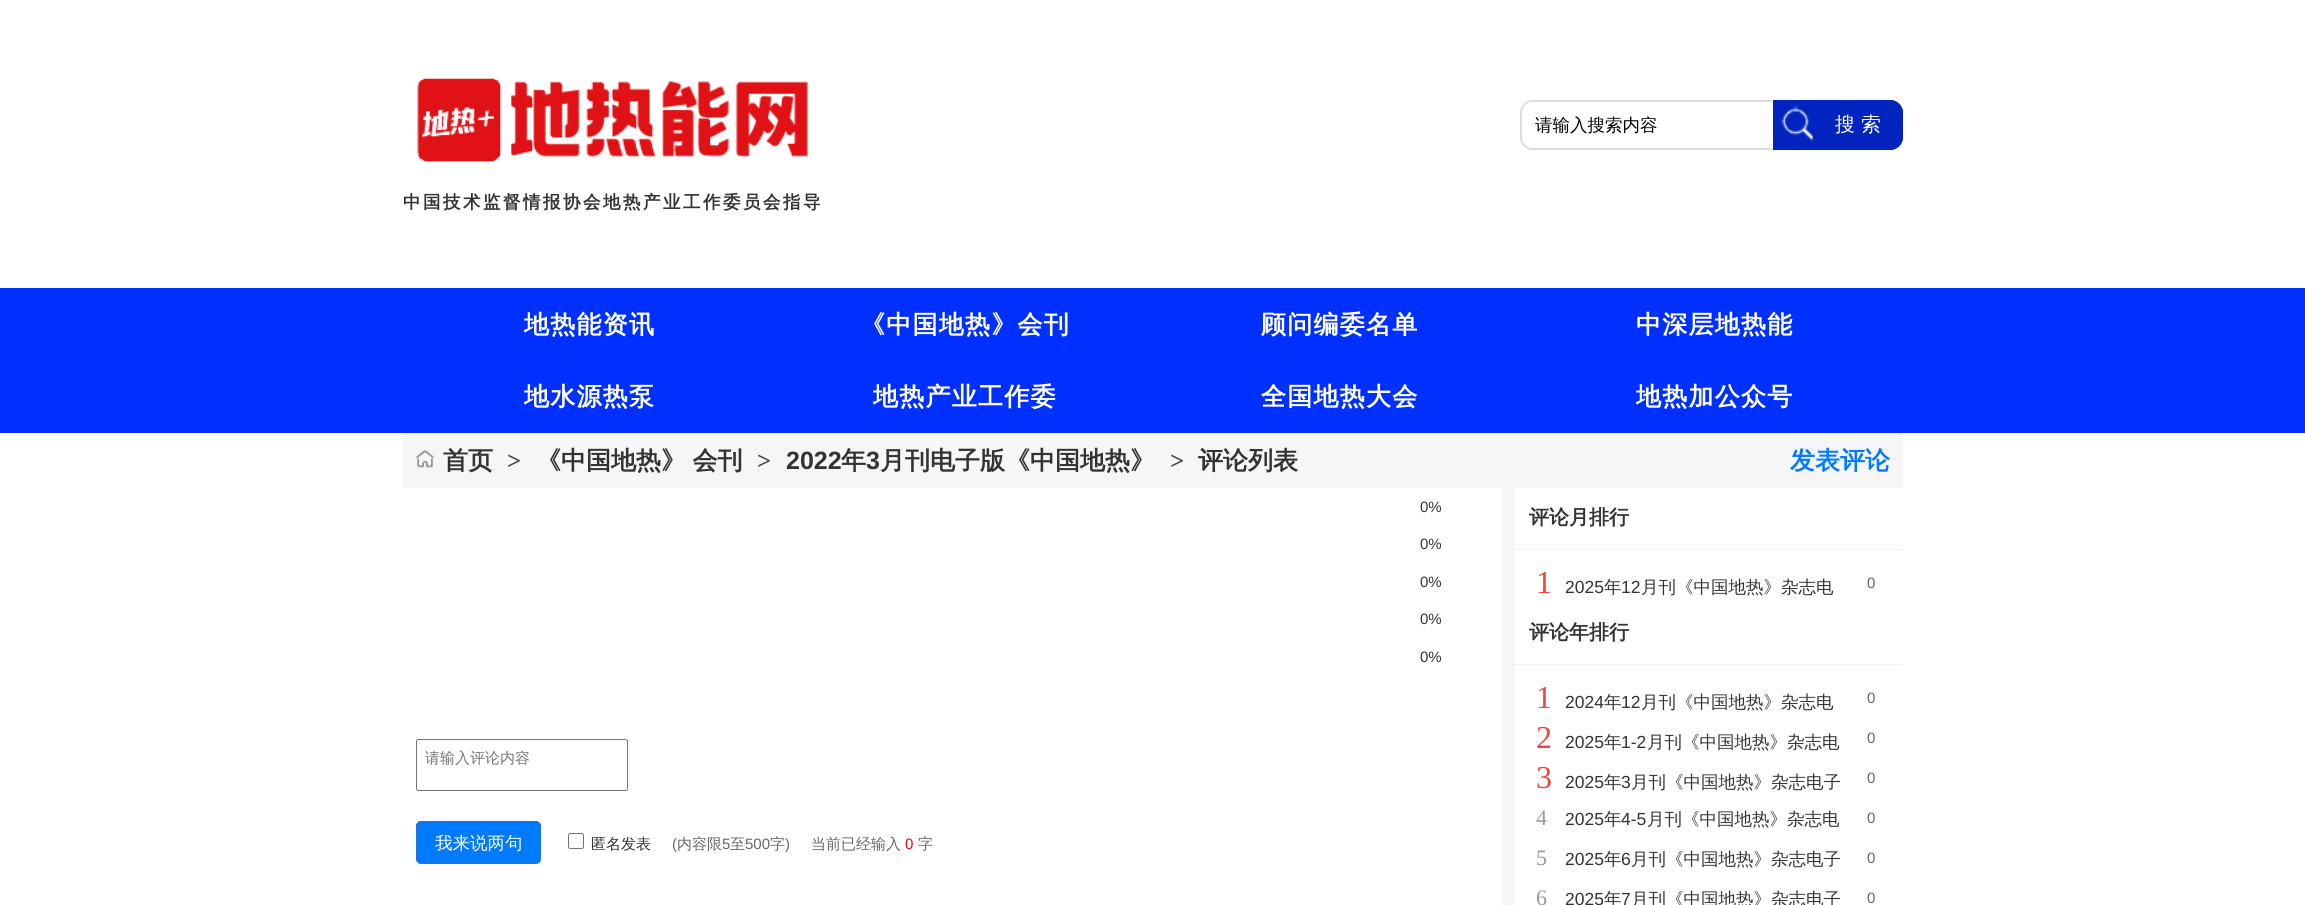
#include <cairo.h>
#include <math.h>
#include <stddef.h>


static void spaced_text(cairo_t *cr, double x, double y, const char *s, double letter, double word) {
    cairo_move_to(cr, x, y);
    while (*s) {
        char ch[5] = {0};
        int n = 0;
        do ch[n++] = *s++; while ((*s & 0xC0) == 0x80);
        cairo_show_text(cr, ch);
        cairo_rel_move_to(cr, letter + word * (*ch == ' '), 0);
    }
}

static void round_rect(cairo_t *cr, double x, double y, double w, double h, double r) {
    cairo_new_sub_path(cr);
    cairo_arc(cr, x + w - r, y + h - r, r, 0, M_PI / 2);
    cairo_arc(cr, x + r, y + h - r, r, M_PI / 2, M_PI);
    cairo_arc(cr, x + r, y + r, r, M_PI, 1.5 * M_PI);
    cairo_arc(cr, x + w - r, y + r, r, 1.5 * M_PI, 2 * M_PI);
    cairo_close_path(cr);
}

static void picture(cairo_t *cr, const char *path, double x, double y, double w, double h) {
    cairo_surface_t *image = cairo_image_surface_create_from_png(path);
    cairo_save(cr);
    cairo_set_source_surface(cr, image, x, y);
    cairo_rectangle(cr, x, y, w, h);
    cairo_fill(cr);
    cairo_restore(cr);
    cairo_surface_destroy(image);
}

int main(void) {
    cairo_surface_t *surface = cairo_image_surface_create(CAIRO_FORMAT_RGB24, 2305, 905);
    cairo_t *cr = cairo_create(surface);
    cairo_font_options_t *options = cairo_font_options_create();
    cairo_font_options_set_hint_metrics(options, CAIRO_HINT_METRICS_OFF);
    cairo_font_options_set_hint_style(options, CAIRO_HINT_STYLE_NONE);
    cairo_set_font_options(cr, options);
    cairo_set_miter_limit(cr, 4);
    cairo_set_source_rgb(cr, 1, 1, 1);
    cairo_paint(cr);
    cairo_set_source_rgb(cr, 0.867, 0.867, 0.867);
    cairo_set_fill_rule(cr, CAIRO_FILL_RULE_EVEN_ODD);
    cairo_new_path(cr);
    cairo_move_to(cr, 1532, 100);
    cairo_line_to(cr, 1772, 100);
    cairo_line_to(cr, 1772, 150);
    cairo_line_to(cr, 1532, 150);
    cairo_curve_to(cr, 1526, 150, 1520, 144, 1520, 138);
    cairo_line_to(cr, 1520, 112);
    cairo_curve_to(cr, 1520, 106, 1526, 100, 1532, 100);
    cairo_close_path(cr);
    cairo_move_to(cr, 1532, 102);
    cairo_line_to(cr, 1772, 102);
    cairo_line_to(cr, 1772, 148);
    cairo_line_to(cr, 1532, 148);
    cairo_curve_to(cr, 1527, 148, 1522, 143, 1522, 138);
    cairo_line_to(cr, 1522, 112);
    cairo_curve_to(cr, 1522, 107, 1527, 102, 1532, 102);
    cairo_close_path(cr);
    cairo_fill(cr);
    cairo_select_font_face(cr, "WenQuanYi Zen Hei Medium", CAIRO_FONT_SLANT_NORMAL, CAIRO_FONT_WEIGHT_NORMAL);
    cairo_set_font_size(cr, 17.5);
    cairo_set_source_rgb(cr, 0, 0, 0);
    cairo_move_to(cr, 1535, 131);
    cairo_show_text(cr, "请输入搜索内容");
    cairo_set_source_rgb(cr, 0.004, 0.141, 0.745);
    cairo_new_path(cr);
    cairo_move_to(cr, 1773, 100);
    cairo_line_to(cr, 1890, 100);
    cairo_curve_to(cr, 1897, 100, 1903, 106, 1903, 113);
    cairo_line_to(cr, 1903, 137);
    cairo_curve_to(cr, 1903, 144, 1897, 150, 1890, 150);
    cairo_line_to(cr, 1773, 150);
    cairo_close_path(cr);
    cairo_fill(cr);
    picture(cr, "img1.png", 1772, 100, 122, 47);
    cairo_new_path(cr);
    cairo_move_to(cr, 1774.5, 101.5);
    cairo_line_to(cr, 1890, 101.5);
    cairo_curve_to(cr, 1896.5, 101.5, 1901.5, 106.5, 1901.5, 113);
    cairo_line_to(cr, 1901.5, 137);
    cairo_curve_to(cr, 1901.5, 143.5, 1896.5, 148.5, 1890, 148.5);
    cairo_line_to(cr, 1774.5, 148.5);
    cairo_close_path(cr);
    cairo_set_line_width(cr, 3);
    cairo_stroke(cr);
    cairo_new_path(cr);
    cairo_move_to(cr, 1813, 103);
    cairo_line_to(cr, 1890, 103);
    cairo_curve_to(cr, 1897, 103, 1903, 109, 1903, 116);
    cairo_line_to(cr, 1903, 135);
    cairo_curve_to(cr, 1903, 142, 1897, 148, 1890, 148);
    cairo_line_to(cr, 1813, 148);
    cairo_close_path(cr);
    cairo_fill(cr);
    cairo_set_font_size(cr, 20);
    cairo_set_source_rgb(cr, 1, 1, 1);
    cairo_move_to(cr, 1835, 131);
    cairo_show_text(cr, "搜 索");
    picture(cr, "img2.png", 417, 78, 391, 84);
    cairo_select_font_face(cr, "WenQuanYi Zen Hei", CAIRO_FONT_SLANT_NORMAL, CAIRO_FONT_WEIGHT_BOLD);
    cairo_set_font_size(cr, 17.5);
    cairo_set_source_rgb(cr, 0.2, 0.2, 0.2);
    spaced_text(cr, 403, 208, "中国技术监督情报协会地热产业工作委员会指导", 2.5, 0);
    cairo_set_source_rgb(cr, 0, 0.188, 1);
    cairo_rectangle(cr, 0, 288, 2305, 145);
    cairo_fill(cr);
    cairo_set_font_size(cr, 25);
    cairo_set_source_rgb(cr, 1, 1, 1);
    spaced_text(cr, 524, 333, "地热能资讯", 1.25, 0);
    spaced_text(cr, 860, 333, "《中国地热》会刊", 1.25, 0);
    spaced_text(cr, 1261, 333, "顾问编委名单", 1.25, 0);
    spaced_text(cr, 1636, 333, "中深层地热能", 1.25, 0);
    spaced_text(cr, 524, 405, "地水源热泵", 1.25, 0);
    spaced_text(cr, 873, 405, "地热产业工作委", 1.25, 0);
    spaced_text(cr, 1261, 405, "全国地热大会", 1.25, 0);
    spaced_text(cr, 1636, 405, "地热加公众号", 1.25, 0);
    cairo_set_source_rgb(cr, 0.961, 0.961, 0.961);
    cairo_rectangle(cr, 403, 433, 1500, 55);
    cairo_fill(cr);
    picture(cr, "img3.png", 416, 450, 18, 18);
    cairo_set_source_rgb(cr, 0.2, 0.2, 0.2);
    cairo_move_to(cr, 443, 469);
    cairo_show_text(cr, "首页");
    cairo_select_font_face(cr, "Liberation Serif", CAIRO_FONT_SLANT_NORMAL, CAIRO_FONT_WEIGHT_BOLD);
    cairo_set_source_rgb(cr, 0.267, 0.267, 0.267);
    cairo_move_to(cr, 507, 469);
    cairo_show_text(cr, ">");
    cairo_select_font_face(cr, "WenQuanYi Zen Hei", CAIRO_FONT_SLANT_NORMAL, CAIRO_FONT_WEIGHT_BOLD);
    cairo_set_source_rgb(cr, 0.2, 0.2, 0.2);
    spaced_text(cr, 536, 469, "《中国地热》 会刊", 0, -1);
    cairo_select_font_face(cr, "Liberation Serif", CAIRO_FONT_SLANT_NORMAL, CAIRO_FONT_WEIGHT_BOLD);
    cairo_set_source_rgb(cr, 0.267, 0.267, 0.267);
    cairo_move_to(cr, 757, 469);
    cairo_show_text(cr, ">");
    cairo_select_font_face(cr, "Liberation Sans", CAIRO_FONT_SLANT_NORMAL, CAIRO_FONT_WEIGHT_BOLD);
    cairo_set_source_rgb(cr, 0.2, 0.2, 0.2);
    cairo_move_to(cr, 786, 469);
    cairo_show_text(cr, "2022");
    cairo_select_font_face(cr, "WenQuanYi Zen Hei", CAIRO_FONT_SLANT_NORMAL, CAIRO_FONT_WEIGHT_BOLD);
    cairo_move_to(cr, 841, 469);
    cairo_show_text(cr, "年");
    cairo_select_font_face(cr, "Liberation Sans", CAIRO_FONT_SLANT_NORMAL, CAIRO_FONT_WEIGHT_BOLD);
    cairo_move_to(cr, 866, 469);
    cairo_show_text(cr, "3");
    cairo_select_font_face(cr, "WenQuanYi Zen Hei", CAIRO_FONT_SLANT_NORMAL, CAIRO_FONT_WEIGHT_BOLD);
    cairo_move_to(cr, 880, 469);
    cairo_show_text(cr, "月刊电子版《中国地热》");
    cairo_select_font_face(cr, "Liberation Serif", CAIRO_FONT_SLANT_NORMAL, CAIRO_FONT_WEIGHT_BOLD);
    cairo_set_source_rgb(cr, 0.267, 0.267, 0.267);
    cairo_move_to(cr, 1170, 469);
    cairo_show_text(cr, ">");
    cairo_select_font_face(cr, "WenQuanYi Zen Hei", CAIRO_FONT_SLANT_NORMAL, CAIRO_FONT_WEIGHT_BOLD);
    cairo_set_source_rgb(cr, 0.2, 0.2, 0.2);
    cairo_move_to(cr, 1198, 469);
    cairo_show_text(cr, "评论列表");
    cairo_set_source_rgb(cr, 0, 0.478, 1);
    cairo_move_to(cr, 1790, 469);
    cairo_show_text(cr, "发表评论");
    cairo_set_source_rgb(cr, 0.961, 0.961, 0.961);
    cairo_rectangle(cr, 1502, 488, 13, 417);
    cairo_fill(cr);
    cairo_select_font_face(cr, "Liberation Sans", CAIRO_FONT_SLANT_NORMAL, CAIRO_FONT_WEIGHT_NORMAL);
    cairo_set_font_size(cr, 15);
    cairo_set_source_rgb(cr, 0.2, 0.2, 0.2);
    cairo_move_to(cr, 1420, 512);
    cairo_show_text(cr, "0%");
    cairo_move_to(cr, 1420, 549);
    cairo_show_text(cr, "0%");
    cairo_move_to(cr, 1420, 587);
    cairo_show_text(cr, "0%");
    cairo_move_to(cr, 1420, 624);
    cairo_show_text(cr, "0%");
    cairo_move_to(cr, 1420, 662);
    cairo_show_text(cr, "0%");
    round_rect(cr, 416.5, 739.5, 211, 51, 2);
    cairo_set_source_rgb(cr, 0.463, 0.463, 0.463);
    cairo_set_line_width(cr, 1);
    cairo_stroke(cr);
    cairo_select_font_face(cr, "WenQuanYi Zen Hei Medium", CAIRO_FONT_SLANT_NORMAL, CAIRO_FONT_WEIGHT_NORMAL);
    cairo_set_source_rgb(cr, 0.459, 0.459, 0.459);
    cairo_move_to(cr, 425, 763);
    cairo_show_text(cr, "请输入评论内容");
    cairo_set_source_rgb(cr, 0, 0.478, 1);
    round_rect(cr, 416.5, 821.5, 124, 42, 4.5);
    cairo_fill_preserve(cr);
    cairo_set_source_rgb(cr, 0.118, 0.455, 0.816);
    cairo_stroke(cr);
    cairo_set_font_size(cr, 17.5);
    cairo_set_source_rgb(cr, 1, 1, 1);
    cairo_move_to(cr, 435, 849);
    cairo_show_text(cr, "我来说两句");
    round_rect(cr, 568.5, 833.5, 15, 15, 2);
    cairo_set_source_rgb(cr, 0.463, 0.463, 0.463);
    cairo_stroke(cr);
    cairo_set_font_size(cr, 15);
    cairo_set_source_rgb(cr, 0.2, 0.2, 0.2);
    cairo_move_to(cr, 591, 849);
    cairo_show_text(cr, "匿名发表");
    cairo_select_font_face(cr, "Liberation Sans", CAIRO_FONT_SLANT_NORMAL, CAIRO_FONT_WEIGHT_NORMAL);
    cairo_set_source_rgb(cr, 0.4, 0.4, 0.4);
    cairo_move_to(cr, 672, 849);
    cairo_show_text(cr, "(");
    cairo_select_font_face(cr, "WenQuanYi Zen Hei Medium", CAIRO_FONT_SLANT_NORMAL, CAIRO_FONT_WEIGHT_NORMAL);
    cairo_move_to(cr, 677, 849);
    cairo_show_text(cr, "内容限");
    cairo_select_font_face(cr, "Liberation Sans", CAIRO_FONT_SLANT_NORMAL, CAIRO_FONT_WEIGHT_NORMAL);
    cairo_move_to(cr, 722, 849);
    cairo_show_text(cr, "5");
    cairo_select_font_face(cr, "WenQuanYi Zen Hei Medium", CAIRO_FONT_SLANT_NORMAL, CAIRO_FONT_WEIGHT_NORMAL);
    cairo_move_to(cr, 730, 849);
    cairo_show_text(cr, "至");
    cairo_select_font_face(cr, "Liberation Sans", CAIRO_FONT_SLANT_NORMAL, CAIRO_FONT_WEIGHT_NORMAL);
    cairo_move_to(cr, 745, 849);
    cairo_show_text(cr, "500");
    cairo_select_font_face(cr, "WenQuanYi Zen Hei Medium", CAIRO_FONT_SLANT_NORMAL, CAIRO_FONT_WEIGHT_NORMAL);
    cairo_move_to(cr, 770, 849);
    cairo_show_text(cr, "字");
    cairo_select_font_face(cr, "Liberation Sans", CAIRO_FONT_SLANT_NORMAL, CAIRO_FONT_WEIGHT_NORMAL);
    cairo_move_to(cr, 785, 849);
    cairo_show_text(cr, ")");
    cairo_select_font_face(cr, "WenQuanYi Zen Hei Medium", CAIRO_FONT_SLANT_NORMAL, CAIRO_FONT_WEIGHT_NORMAL);
    cairo_move_to(cr, 811, 849);
    cairo_show_text(cr, "当前已经输入");
    cairo_select_font_face(cr, "Liberation Sans", CAIRO_FONT_SLANT_NORMAL, CAIRO_FONT_WEIGHT_NORMAL);
    cairo_set_source_rgb(cr, 1, 0, 0);
    cairo_move_to(cr, 905, 849);
    cairo_show_text(cr, "0");
    cairo_select_font_face(cr, "WenQuanYi Zen Hei Medium", CAIRO_FONT_SLANT_NORMAL, CAIRO_FONT_WEIGHT_NORMAL);
    cairo_set_source_rgb(cr, 0.4, 0.4, 0.4);
    cairo_move_to(cr, 918, 849);
    cairo_show_text(cr, "字");
    cairo_set_source_rgb(cr, 0.949, 0.949, 0.949);
    cairo_rectangle(cr, 1509, 549, 394, 1);
    cairo_fill(cr);
    cairo_select_font_face(cr, "WenQuanYi Zen Hei", CAIRO_FONT_SLANT_NORMAL, CAIRO_FONT_WEIGHT_BOLD);
    cairo_set_font_size(cr, 20);
    cairo_set_source_rgb(cr, 0.2, 0.2, 0.2);
    cairo_move_to(cr, 1529, 524);
    cairo_show_text(cr, "评论月排行");
    cairo_select_font_face(cr, "Liberation Serif", CAIRO_FONT_SLANT_NORMAL, CAIRO_FONT_WEIGHT_NORMAL);
    cairo_set_font_size(cr, 32);
    cairo_set_source_rgb(cr, 0.953, 0.271, 0.251);
    cairo_move_to(cr, 1536, 593);
    cairo_show_text(cr, "1");
    cairo_select_font_face(cr, "Liberation Sans", CAIRO_FONT_SLANT_NORMAL, CAIRO_FONT_WEIGHT_NORMAL);
    cairo_set_font_size(cr, 17.5);
    cairo_set_source_rgb(cr, 0.2, 0.2, 0.2);
    cairo_move_to(cr, 1565, 593);
    cairo_show_text(cr, "2025");
    cairo_select_font_face(cr, "WenQuanYi Zen Hei Medium", CAIRO_FONT_SLANT_NORMAL, CAIRO_FONT_WEIGHT_NORMAL);
    cairo_move_to(cr, 1604, 593);
    cairo_show_text(cr, "年");
    cairo_select_font_face(cr, "Liberation Sans", CAIRO_FONT_SLANT_NORMAL, CAIRO_FONT_WEIGHT_NORMAL);
    cairo_move_to(cr, 1621, 593);
    cairo_show_text(cr, "12");
    cairo_select_font_face(cr, "WenQuanYi Zen Hei Medium", CAIRO_FONT_SLANT_NORMAL, CAIRO_FONT_WEIGHT_NORMAL);
    cairo_move_to(cr, 1641, 593);
    cairo_show_text(cr, "月刊《中国地热》杂志电");
    cairo_select_font_face(cr, "Liberation Sans", CAIRO_FONT_SLANT_NORMAL, CAIRO_FONT_WEIGHT_NORMAL);
    cairo_set_font_size(cr, 15);
    cairo_set_source_rgb(cr, 0.4, 0.4, 0.4);
    cairo_move_to(cr, 1867, 588);
    cairo_show_text(cr, "0");
    cairo_set_source_rgb(cr, 0.949, 0.949, 0.949);
    cairo_rectangle(cr, 1509, 664, 394, 1);
    cairo_fill(cr);
    cairo_select_font_face(cr, "WenQuanYi Zen Hei", CAIRO_FONT_SLANT_NORMAL, CAIRO_FONT_WEIGHT_BOLD);
    cairo_set_font_size(cr, 20);
    cairo_set_source_rgb(cr, 0.2, 0.2, 0.2);
    cairo_move_to(cr, 1529, 639);
    cairo_show_text(cr, "评论年排行");
    cairo_select_font_face(cr, "Liberation Serif", CAIRO_FONT_SLANT_NORMAL, CAIRO_FONT_WEIGHT_NORMAL);
    cairo_set_font_size(cr, 32);
    cairo_set_source_rgb(cr, 0.953, 0.271, 0.251);
    cairo_move_to(cr, 1536, 708);
    cairo_show_text(cr, "1");
    cairo_select_font_face(cr, "Liberation Sans", CAIRO_FONT_SLANT_NORMAL, CAIRO_FONT_WEIGHT_NORMAL);
    cairo_set_font_size(cr, 17.5);
    cairo_set_source_rgb(cr, 0.2, 0.2, 0.2);
    cairo_move_to(cr, 1565, 708);
    cairo_show_text(cr, "2024");
    cairo_select_font_face(cr, "WenQuanYi Zen Hei Medium", CAIRO_FONT_SLANT_NORMAL, CAIRO_FONT_WEIGHT_NORMAL);
    cairo_move_to(cr, 1604, 708);
    cairo_show_text(cr, "年");
    cairo_select_font_face(cr, "Liberation Sans", CAIRO_FONT_SLANT_NORMAL, CAIRO_FONT_WEIGHT_NORMAL);
    cairo_move_to(cr, 1621, 708);
    cairo_show_text(cr, "12");
    cairo_select_font_face(cr, "WenQuanYi Zen Hei Medium", CAIRO_FONT_SLANT_NORMAL, CAIRO_FONT_WEIGHT_NORMAL);
    cairo_move_to(cr, 1641, 708);
    cairo_show_text(cr, "月刊《中国地热》杂志电");
    cairo_select_font_face(cr, "Liberation Sans", CAIRO_FONT_SLANT_NORMAL, CAIRO_FONT_WEIGHT_NORMAL);
    cairo_set_font_size(cr, 15);
    cairo_set_source_rgb(cr, 0.4, 0.4, 0.4);
    cairo_move_to(cr, 1867, 703);
    cairo_show_text(cr, "0");
    cairo_select_font_face(cr, "Liberation Serif", CAIRO_FONT_SLANT_NORMAL, CAIRO_FONT_WEIGHT_NORMAL);
    cairo_set_font_size(cr, 32);
    cairo_set_source_rgb(cr, 0.953, 0.271, 0.251);
    cairo_move_to(cr, 1536, 748);
    cairo_show_text(cr, "2");
    cairo_select_font_face(cr, "Liberation Sans", CAIRO_FONT_SLANT_NORMAL, CAIRO_FONT_WEIGHT_NORMAL);
    cairo_set_font_size(cr, 17.5);
    cairo_set_source_rgb(cr, 0.2, 0.2, 0.2);
    cairo_move_to(cr, 1565, 748);
    cairo_show_text(cr, "2025");
    cairo_select_font_face(cr, "WenQuanYi Zen Hei Medium", CAIRO_FONT_SLANT_NORMAL, CAIRO_FONT_WEIGHT_NORMAL);
    cairo_move_to(cr, 1604, 748);
    cairo_show_text(cr, "年");
    cairo_select_font_face(cr, "Liberation Sans", CAIRO_FONT_SLANT_NORMAL, CAIRO_FONT_WEIGHT_NORMAL);
    cairo_move_to(cr, 1621, 748);
    cairo_show_text(cr, "1-2");
    cairo_select_font_face(cr, "WenQuanYi Zen Hei Medium", CAIRO_FONT_SLANT_NORMAL, CAIRO_FONT_WEIGHT_NORMAL);
    cairo_move_to(cr, 1647, 748);
    cairo_show_text(cr, "月刊《中国地热》杂志电");
    cairo_select_font_face(cr, "Liberation Sans", CAIRO_FONT_SLANT_NORMAL, CAIRO_FONT_WEIGHT_NORMAL);
    cairo_set_font_size(cr, 15);
    cairo_set_source_rgb(cr, 0.4, 0.4, 0.4);
    cairo_move_to(cr, 1867, 743);
    cairo_show_text(cr, "0");
    cairo_select_font_face(cr, "Liberation Serif", CAIRO_FONT_SLANT_NORMAL, CAIRO_FONT_WEIGHT_NORMAL);
    cairo_set_font_size(cr, 32);
    cairo_set_source_rgb(cr, 0.953, 0.271, 0.251);
    cairo_move_to(cr, 1536, 788);
    cairo_show_text(cr, "3");
    cairo_select_font_face(cr, "Liberation Sans", CAIRO_FONT_SLANT_NORMAL, CAIRO_FONT_WEIGHT_NORMAL);
    cairo_set_font_size(cr, 17.5);
    cairo_set_source_rgb(cr, 0.2, 0.2, 0.2);
    cairo_move_to(cr, 1565, 788);
    cairo_show_text(cr, "2025");
    cairo_select_font_face(cr, "WenQuanYi Zen Hei Medium", CAIRO_FONT_SLANT_NORMAL, CAIRO_FONT_WEIGHT_NORMAL);
    cairo_move_to(cr, 1604, 788);
    cairo_show_text(cr, "年");
    cairo_select_font_face(cr, "Liberation Sans", CAIRO_FONT_SLANT_NORMAL, CAIRO_FONT_WEIGHT_NORMAL);
    cairo_move_to(cr, 1621, 788);
    cairo_show_text(cr, "3");
    cairo_select_font_face(cr, "WenQuanYi Zen Hei Medium", CAIRO_FONT_SLANT_NORMAL, CAIRO_FONT_WEIGHT_NORMAL);
    cairo_move_to(cr, 1631, 788);
    cairo_show_text(cr, "月刊《中国地热》杂志电子");
    cairo_select_font_face(cr, "Liberation Sans", CAIRO_FONT_SLANT_NORMAL, CAIRO_FONT_WEIGHT_NORMAL);
    cairo_set_font_size(cr, 15);
    cairo_set_source_rgb(cr, 0.4, 0.4, 0.4);
    cairo_move_to(cr, 1867, 783);
    cairo_show_text(cr, "0");
    cairo_select_font_face(cr, "Liberation Serif", CAIRO_FONT_SLANT_NORMAL, CAIRO_FONT_WEIGHT_NORMAL);
    cairo_set_font_size(cr, 22);
    cairo_set_source_rgb(cr, 0.6, 0.6, 0.6);
    cairo_move_to(cr, 1536, 825);
    cairo_show_text(cr, "4");
    cairo_select_font_face(cr, "Liberation Sans", CAIRO_FONT_SLANT_NORMAL, CAIRO_FONT_WEIGHT_NORMAL);
    cairo_set_font_size(cr, 17.5);
    cairo_set_source_rgb(cr, 0.2, 0.2, 0.2);
    cairo_move_to(cr, 1565, 825);
    cairo_show_text(cr, "2025");
    cairo_select_font_face(cr, "WenQuanYi Zen Hei Medium", CAIRO_FONT_SLANT_NORMAL, CAIRO_FONT_WEIGHT_NORMAL);
    cairo_move_to(cr, 1604, 825);
    cairo_show_text(cr, "年");
    cairo_select_font_face(cr, "Liberation Sans", CAIRO_FONT_SLANT_NORMAL, CAIRO_FONT_WEIGHT_NORMAL);
    cairo_move_to(cr, 1621, 825);
    cairo_show_text(cr, "4-5");
    cairo_select_font_face(cr, "WenQuanYi Zen Hei Medium", CAIRO_FONT_SLANT_NORMAL, CAIRO_FONT_WEIGHT_NORMAL);
    cairo_move_to(cr, 1647, 825);
    cairo_show_text(cr, "月刊《中国地热》杂志电");
    cairo_select_font_face(cr, "Liberation Sans", CAIRO_FONT_SLANT_NORMAL, CAIRO_FONT_WEIGHT_NORMAL);
    cairo_set_font_size(cr, 15);
    cairo_set_source_rgb(cr, 0.4, 0.4, 0.4);
    cairo_move_to(cr, 1867, 823);
    cairo_show_text(cr, "0");
    cairo_select_font_face(cr, "Liberation Serif", CAIRO_FONT_SLANT_NORMAL, CAIRO_FONT_WEIGHT_NORMAL);
    cairo_set_font_size(cr, 22);
    cairo_set_source_rgb(cr, 0.6, 0.6, 0.6);
    cairo_move_to(cr, 1536, 865);
    cairo_show_text(cr, "5");
    cairo_select_font_face(cr, "Liberation Sans", CAIRO_FONT_SLANT_NORMAL, CAIRO_FONT_WEIGHT_NORMAL);
    cairo_set_font_size(cr, 17.5);
    cairo_set_source_rgb(cr, 0.2, 0.2, 0.2);
    cairo_move_to(cr, 1565, 865);
    cairo_show_text(cr, "2025");
    cairo_select_font_face(cr, "WenQuanYi Zen Hei Medium", CAIRO_FONT_SLANT_NORMAL, CAIRO_FONT_WEIGHT_NORMAL);
    cairo_move_to(cr, 1604, 865);
    cairo_show_text(cr, "年");
    cairo_select_font_face(cr, "Liberation Sans", CAIRO_FONT_SLANT_NORMAL, CAIRO_FONT_WEIGHT_NORMAL);
    cairo_move_to(cr, 1621, 865);
    cairo_show_text(cr, "6");
    cairo_select_font_face(cr, "WenQuanYi Zen Hei Medium", CAIRO_FONT_SLANT_NORMAL, CAIRO_FONT_WEIGHT_NORMAL);
    cairo_move_to(cr, 1631, 865);
    cairo_show_text(cr, "月刊《中国地热》杂志电子");
    cairo_select_font_face(cr, "Liberation Sans", CAIRO_FONT_SLANT_NORMAL, CAIRO_FONT_WEIGHT_NORMAL);
    cairo_set_font_size(cr, 15);
    cairo_set_source_rgb(cr, 0.4, 0.4, 0.4);
    cairo_move_to(cr, 1867, 863);
    cairo_show_text(cr, "0");
    cairo_select_font_face(cr, "Liberation Serif", CAIRO_FONT_SLANT_NORMAL, CAIRO_FONT_WEIGHT_NORMAL);
    cairo_set_font_size(cr, 22);
    cairo_set_source_rgb(cr, 0.6, 0.6, 0.6);
    cairo_move_to(cr, 1536, 905);
    cairo_show_text(cr, "6");
    cairo_select_font_face(cr, "Liberation Sans", CAIRO_FONT_SLANT_NORMAL, CAIRO_FONT_WEIGHT_NORMAL);
    cairo_set_font_size(cr, 17.5);
    cairo_set_source_rgb(cr, 0.2, 0.2, 0.2);
    cairo_move_to(cr, 1565, 905);
    cairo_show_text(cr, "2025");
    cairo_select_font_face(cr, "WenQuanYi Zen Hei Medium", CAIRO_FONT_SLANT_NORMAL, CAIRO_FONT_WEIGHT_NORMAL);
    cairo_move_to(cr, 1604, 905);
    cairo_show_text(cr, "年");
    cairo_select_font_face(cr, "Liberation Sans", CAIRO_FONT_SLANT_NORMAL, CAIRO_FONT_WEIGHT_NORMAL);
    cairo_move_to(cr, 1621, 905);
    cairo_show_text(cr, "7");
    cairo_select_font_face(cr, "WenQuanYi Zen Hei Medium", CAIRO_FONT_SLANT_NORMAL, CAIRO_FONT_WEIGHT_NORMAL);
    cairo_move_to(cr, 1631, 905);
    cairo_show_text(cr, "月刊《中国地热》杂志电子");
    cairo_select_font_face(cr, "Liberation Sans", CAIRO_FONT_SLANT_NORMAL, CAIRO_FONT_WEIGHT_NORMAL);
    cairo_set_font_size(cr, 15);
    cairo_set_source_rgb(cr, 0.4, 0.4, 0.4);
    cairo_move_to(cr, 1867, 903);
    cairo_show_text(cr, "0");
    cairo_surface_write_to_png(surface, "page.png");
    cairo_font_options_destroy(options);
    cairo_destroy(cr);
    cairo_surface_destroy(surface);
    return 0;
}
